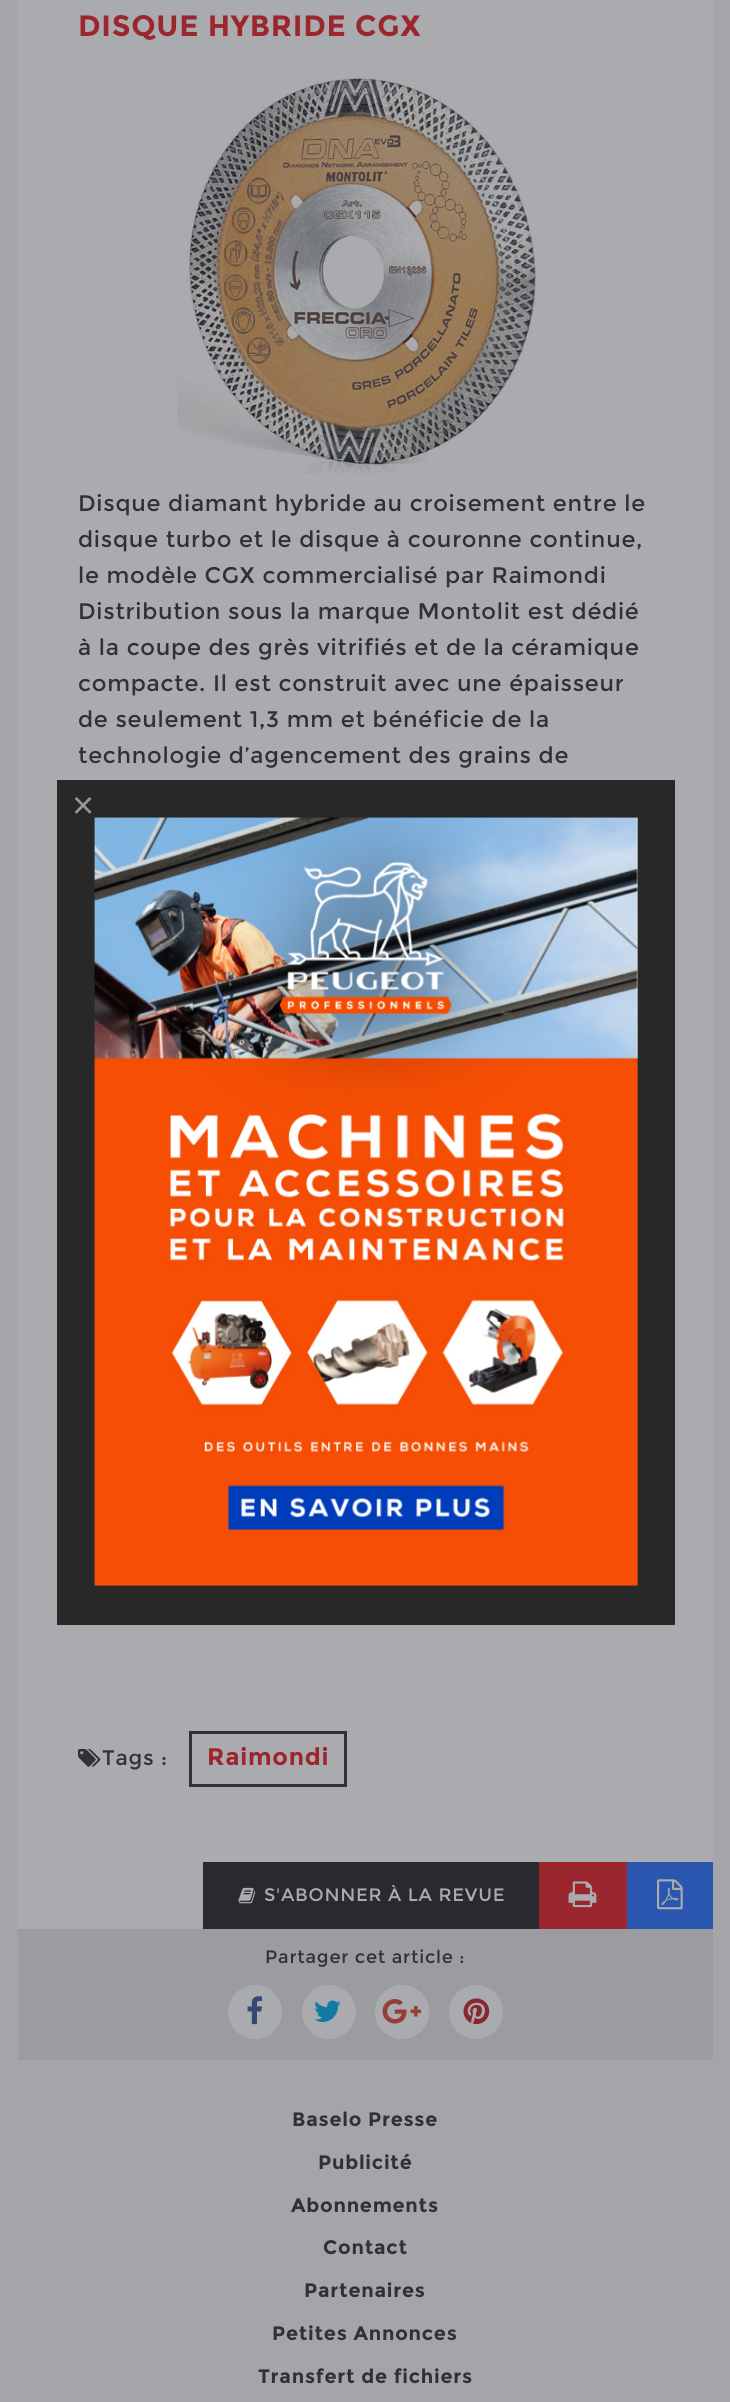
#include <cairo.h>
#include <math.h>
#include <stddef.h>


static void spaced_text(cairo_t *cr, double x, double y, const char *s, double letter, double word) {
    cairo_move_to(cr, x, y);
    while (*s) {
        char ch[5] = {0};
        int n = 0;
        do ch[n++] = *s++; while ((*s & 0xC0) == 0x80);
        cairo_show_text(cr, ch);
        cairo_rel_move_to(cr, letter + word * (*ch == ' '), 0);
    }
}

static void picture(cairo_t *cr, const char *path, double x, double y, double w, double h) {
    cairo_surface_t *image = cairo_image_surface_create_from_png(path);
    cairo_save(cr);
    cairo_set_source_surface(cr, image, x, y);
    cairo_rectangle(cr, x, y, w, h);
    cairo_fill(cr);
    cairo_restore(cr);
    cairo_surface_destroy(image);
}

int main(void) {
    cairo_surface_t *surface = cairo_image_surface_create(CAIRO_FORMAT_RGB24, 730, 2402);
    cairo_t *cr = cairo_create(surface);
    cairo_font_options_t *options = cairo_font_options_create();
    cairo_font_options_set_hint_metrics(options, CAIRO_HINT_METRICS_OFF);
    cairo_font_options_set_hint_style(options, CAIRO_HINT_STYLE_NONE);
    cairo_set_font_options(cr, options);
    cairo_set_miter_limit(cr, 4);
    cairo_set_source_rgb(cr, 0.643, 0.647, 0.663);
    cairo_paint(cr);
    cairo_set_source_rgb(cr, 0.667, 0.671, 0.686);
    cairo_rectangle(cr, 18, 0, 695, 1929);
    cairo_fill(cr);
    cairo_select_font_face(cr, "Montserrat", CAIRO_FONT_SLANT_NORMAL, CAIRO_FONT_WEIGHT_BOLD);
    cairo_set_font_size(cr, 29.4);
    cairo_set_source_rgb(cr, 0.612, 0.149, 0.18);
    spaced_text(cr, 78, 36, "DISQUE HYBRIDE CGX", 0.75, 0);
    picture(cr, "img1.png", 177, 76, 360, 398);
    cairo_select_font_face(cr, "Montserrat", CAIRO_FONT_SLANT_NORMAL, CAIRO_FONT_WEIGHT_NORMAL);
    cairo_set_font_size(cr, 22.5);
    cairo_set_source_rgb(cr, 0.188, 0.192, 0.208);
    spaced_text(cr, 78, 511, "Disque diamant hybride au croisement entre le", 0.75, 0);
    spaced_text(cr, 78, 547, "disque turbo et le disque à couronne continue,", 0.75, 0);
    spaced_text(cr, 78, 583, "le modèle CGX commercialisé par Raimondi", 0.75, 0);
    spaced_text(cr, 78, 619, "Distribution sous la marque Montolit est dédié", 0.75, 0);
    spaced_text(cr, 78, 655, "à la coupe des grès vitrifiés et de la céramique", 0.75, 0);
    spaced_text(cr, 78, 691, "compacte. Il est construit avec une épaisseur", 0.75, 0);
    spaced_text(cr, 78, 727, "de seulement 1,3 mm et bénéficie de la", 0.75, 0);
    spaced_text(cr, 78, 763, "technologie d’agencement des grains de", 0.75, 0);
    picture(cr, "img2.png", 78, 1749, 23, 18);
    cairo_set_font_size(cr, 21);
    spaced_text(cr, 102, 1765, "Tags :", 0.75, 0);
    cairo_rectangle(cr, 190.5, 1732.5, 155, 53);
    cairo_set_line_width(cr, 3);
    cairo_stroke(cr);
    cairo_select_font_face(cr, "Montserrat", CAIRO_FONT_SLANT_NORMAL, CAIRO_FONT_WEIGHT_BOLD);
    cairo_set_font_size(cr, 24);
    cairo_set_source_rgb(cr, 0.612, 0.149, 0.18);
    spaced_text(cr, 207, 1765, "Raimondi", 0.75, 0);
    cairo_set_source_rgb(cr, 0.161, 0.165, 0.18);
    cairo_rectangle(cr, 203, 1862, 336, 67);
    cairo_fill(cr);
    picture(cr, "img3.png", 238, 1887, 18, 17);
    cairo_select_font_face(cr, "Montserrat", CAIRO_FONT_SLANT_NORMAL, CAIRO_FONT_WEIGHT_NORMAL);
    cairo_set_font_size(cr, 18);
    cairo_set_source_rgb(cr, 0.667, 0.671, 0.686);
    spaced_text(cr, 264, 1901, "S'ABONNER À LA REVUE", 0.75, 0);
    cairo_set_source_rgb(cr, 0.612, 0.149, 0.18);
    cairo_rectangle(cr, 539, 1862, 88, 67);
    cairo_fill(cr);
    picture(cr, "img4.png", 568, 1881, 29, 27);
    cairo_set_source_rgb(cr, 0.165, 0.337, 0.686);
    cairo_rectangle(cr, 627, 1862, 86, 67);
    cairo_fill(cr);
    picture(cr, "img5.png", 657, 1879, 26, 31);
    cairo_set_source_rgb(cr, 0.608, 0.612, 0.627);
    cairo_rectangle(cr, 18, 1929, 695, 131);
    cairo_fill(cr);
    cairo_set_source_rgb(cr, 0.188, 0.192, 0.208);
    spaced_text(cr, 265, 1963, "Partager cet article :", 0.75, 0);
    cairo_set_source_rgb(cr, 0.667, 0.671, 0.686);
    cairo_new_path(cr);
    cairo_arc(cr, 255, 2012, 27, 0, 2 * M_PI);
    cairo_fill(cr);
    picture(cr, "img6.png", 247, 1996, 16, 29);
    cairo_arc(cr, 329, 2012, 27, 0, 2 * M_PI);
    cairo_fill(cr);
    picture(cr, "img7.png", 314, 2000, 27, 22);
    cairo_arc(cr, 402, 2012, 27, 0, 2 * M_PI);
    cairo_fill(cr);
    picture(cr, "img8.png", 382, 1999, 40, 25);
    cairo_arc(cr, 476, 2012, 27, 0, 2 * M_PI);
    cairo_fill(cr);
    picture(cr, "img9.png", 463, 1998, 27, 27);
    cairo_set_source_rgb(cr, 0.157, 0.157, 0.157);
    cairo_rectangle(cr, 57, 780, 618, 845);
    cairo_fill(cr);
    cairo_select_font_face(cr, "Liberation Sans", CAIRO_FONT_SLANT_NORMAL, CAIRO_FONT_WEIGHT_NORMAL);
    cairo_set_font_size(cr, 38);
    cairo_set_source_rgb(cr, 0.584, 0.592, 0.612);
    cairo_move_to(cr, 72, 818);
    cairo_show_text(cr, "×");
    picture(cr, "img10.png", 94, 817, 544, 769);
    cairo_select_font_face(cr, "Montserrat", CAIRO_FONT_SLANT_NORMAL, CAIRO_FONT_WEIGHT_BOLD);
    cairo_set_font_size(cr, 19.5);
    cairo_set_source_rgb(cr, 0.188, 0.192, 0.208);
    spaced_text(cr, 292, 2126, "Baselo Presse", 0.75, 0);
    spaced_text(cr, 318, 2169, "Publicité", 0.75, 0);
    spaced_text(cr, 291, 2212, "Abonnements", 0.75, 0);
    spaced_text(cr, 323, 2254, "Contact", 0.75, 0);
    spaced_text(cr, 304, 2297, "Partenaires", 0.75, 0);
    spaced_text(cr, 272, 2340, "Petites Annonces", 0.75, 0);
    spaced_text(cr, 258, 2383, "Transfert de fichiers", 0.75, 0);
    cairo_surface_write_to_png(surface, "page.png");
    cairo_font_options_destroy(options);
    cairo_destroy(cr);
    cairo_surface_destroy(surface);
    return 0;
}
